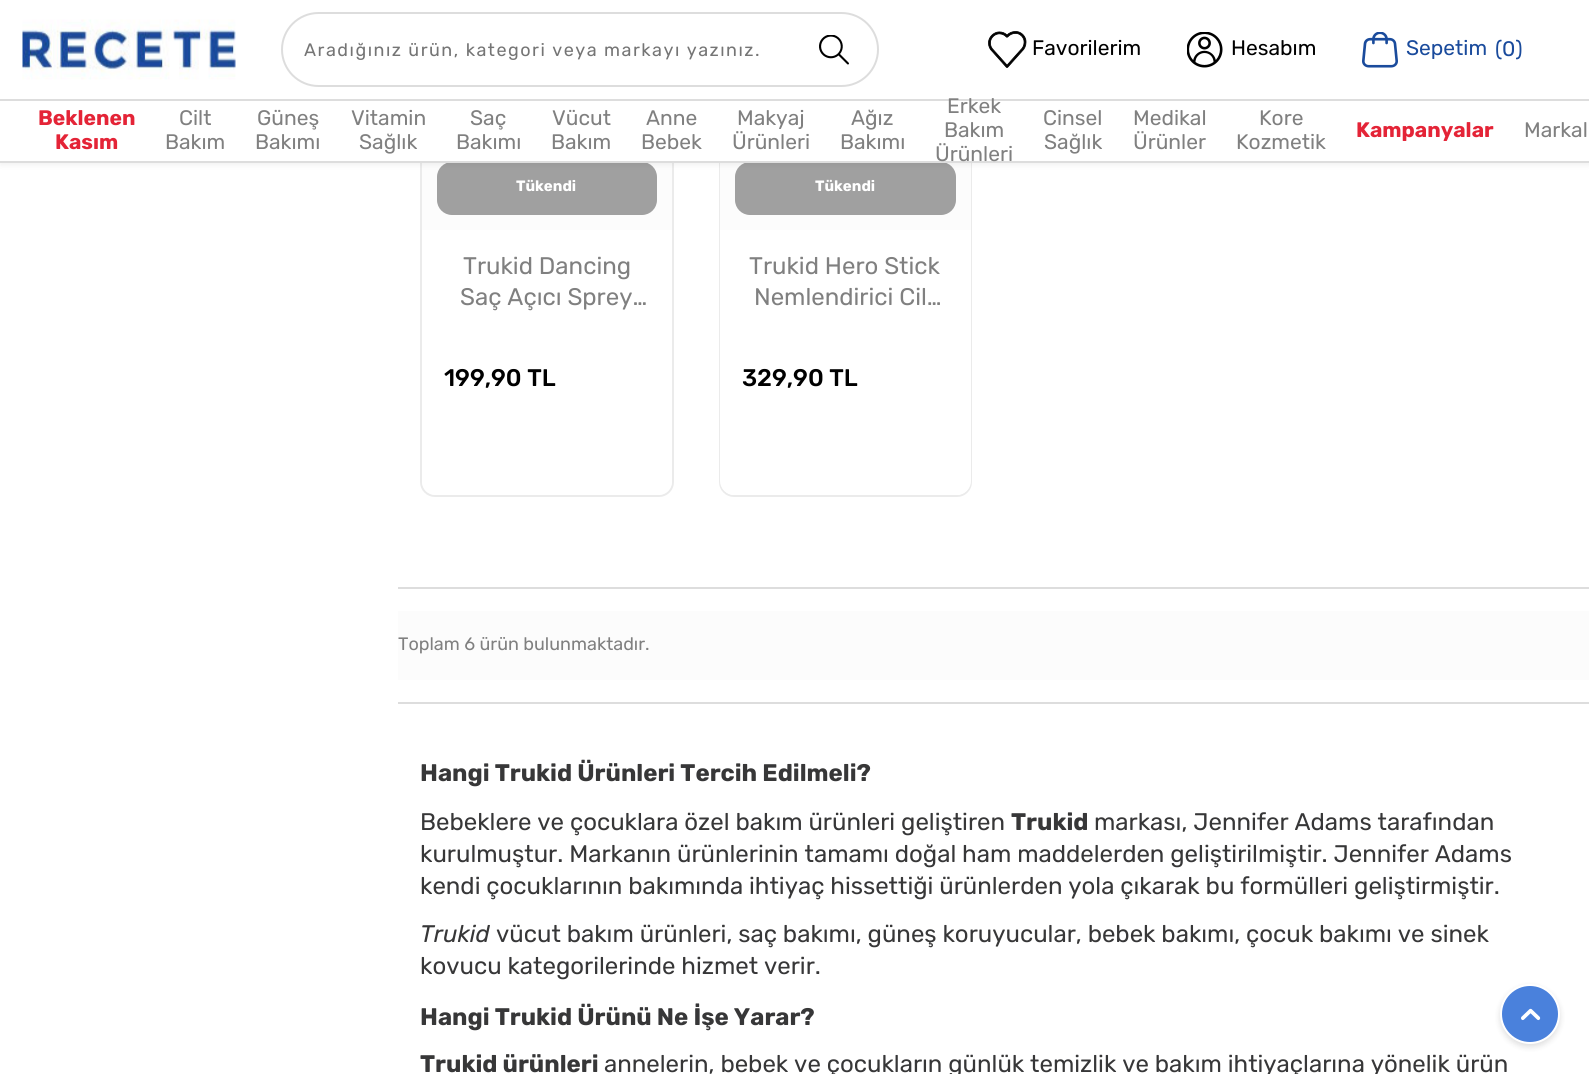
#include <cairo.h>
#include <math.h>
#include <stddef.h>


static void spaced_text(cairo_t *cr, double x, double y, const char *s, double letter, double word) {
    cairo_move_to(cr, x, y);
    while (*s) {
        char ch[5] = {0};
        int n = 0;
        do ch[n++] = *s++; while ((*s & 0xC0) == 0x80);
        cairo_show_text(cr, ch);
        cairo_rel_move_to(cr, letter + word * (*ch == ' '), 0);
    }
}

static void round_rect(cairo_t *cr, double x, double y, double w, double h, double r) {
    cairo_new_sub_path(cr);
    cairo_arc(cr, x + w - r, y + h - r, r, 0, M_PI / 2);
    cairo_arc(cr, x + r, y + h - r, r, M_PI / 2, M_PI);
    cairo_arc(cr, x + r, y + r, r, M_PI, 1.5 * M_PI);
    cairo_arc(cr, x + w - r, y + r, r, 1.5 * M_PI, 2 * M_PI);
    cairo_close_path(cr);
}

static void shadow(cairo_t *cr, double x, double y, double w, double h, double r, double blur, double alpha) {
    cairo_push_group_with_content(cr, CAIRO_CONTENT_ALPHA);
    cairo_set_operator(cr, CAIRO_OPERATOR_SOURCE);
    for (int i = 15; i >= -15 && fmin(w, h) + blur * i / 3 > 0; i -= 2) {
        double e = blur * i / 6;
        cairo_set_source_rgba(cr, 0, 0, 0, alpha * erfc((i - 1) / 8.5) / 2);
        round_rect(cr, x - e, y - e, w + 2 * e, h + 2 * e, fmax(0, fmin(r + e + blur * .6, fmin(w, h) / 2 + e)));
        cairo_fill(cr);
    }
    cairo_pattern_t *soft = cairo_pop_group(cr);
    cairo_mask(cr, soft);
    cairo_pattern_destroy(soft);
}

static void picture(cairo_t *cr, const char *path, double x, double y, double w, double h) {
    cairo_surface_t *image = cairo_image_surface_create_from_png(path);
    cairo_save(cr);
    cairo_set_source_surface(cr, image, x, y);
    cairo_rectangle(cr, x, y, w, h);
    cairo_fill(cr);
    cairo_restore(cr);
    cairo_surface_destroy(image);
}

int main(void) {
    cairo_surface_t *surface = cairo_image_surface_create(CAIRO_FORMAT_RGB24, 1589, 1074);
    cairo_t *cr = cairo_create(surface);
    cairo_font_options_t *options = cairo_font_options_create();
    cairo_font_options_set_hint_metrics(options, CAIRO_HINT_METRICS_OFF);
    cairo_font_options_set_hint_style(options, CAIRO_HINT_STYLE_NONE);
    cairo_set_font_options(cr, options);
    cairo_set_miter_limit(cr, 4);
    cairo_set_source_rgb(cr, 1, 1, 1);
    cairo_paint(cr);
    round_rect(cr, 421, -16, 252, 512, 14);
    cairo_set_source_rgb(cr, 0.918, 0.918, 0.918);
    cairo_stroke(cr);
    cairo_set_source_rgb(cr, 0.988, 0.988, 0.988);
    cairo_rectangle(cr, 422, 163, 250, 67);
    cairo_fill(cr);
    cairo_set_source_rgb(cr, 0.627, 0.627, 0.627);
    round_rect(cr, 437, 162, 220, 53, 15);
    cairo_fill(cr);
    round_rect(cr, 720, -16, 251, 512, 14);
    cairo_set_source_rgb(cr, 0.918, 0.918, 0.918);
    cairo_stroke(cr);
    cairo_set_source_rgb(cr, 0.988, 0.988, 0.988);
    cairo_rectangle(cr, 720, 163, 251, 67);
    cairo_fill(cr);
    cairo_set_source_rgb(cr, 0.627, 0.627, 0.627);
    round_rect(cr, 735, 162, 221, 53, 15);
    cairo_fill(cr);
    cairo_set_source_rgb(cr, 0, 0, 0);
    shadow(cr, 0, 3, 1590, 162, 0, 3, 0.06);
    cairo_set_source_rgb(cr, 1, 1, 1);
    cairo_rectangle(cr, 0, 0, 1589, 99);
    cairo_fill(cr);
    picture(cr, "img1.png", 22, 19, 214, 61);
    round_rect(cr, 282, 13, 596, 73, 36.5);
    cairo_set_source_rgb(cr, 0.867, 0.867, 0.867);
    cairo_stroke(cr);
    cairo_select_font_face(cr, "Rubik", CAIRO_FONT_SLANT_NORMAL, CAIRO_FONT_WEIGHT_NORMAL);
    cairo_set_font_size(cr, 18);
    cairo_set_source_rgb(cr, 0.459, 0.459, 0.459);
    spaced_text(cr, 304, 56, "Aradığınız ürün, kategori veya markayı yazınız.", 1.5, 0);
    picture(cr, "img2.png", 819, 35, 30, 30);
    picture(cr, "img3.png", 988, 31, 39, 37);
    cairo_set_font_size(cr, 21);
    cairo_set_source_rgb(cr, 0, 0, 0);
    cairo_move_to(cr, 1032, 55);
    cairo_show_text(cr, "Favorilerim");
    picture(cr, "img4.png", 1187, 32, 36, 36);
    cairo_move_to(cr, 1231, 55);
    cairo_show_text(cr, "Hesabım");
    picture(cr, "img5.png", 1362, 32, 36, 36);
    cairo_set_source_rgb(cr, 0.102, 0.294, 0.612);
    cairo_move_to(cr, 1406, 55);
    cairo_show_text(cr, "Sepetim");
    cairo_move_to(cr, 1495, 56);
    cairo_show_text(cr, "(0)");
    cairo_set_source_rgb(cr, 1, 1, 1);
    cairo_rectangle(cr, 0, 101, 1589, 60);
    cairo_fill(cr);
    cairo_set_source_rgb(cr, 0.867, 0.867, 0.867);
    cairo_rectangle(cr, 0, 99, 1589, 2);
    cairo_fill(cr);
    cairo_rectangle(cr, 0, 161, 1589, 2);
    cairo_fill(cr);
    cairo_select_font_face(cr, "Rubik", CAIRO_FONT_SLANT_NORMAL, CAIRO_FONT_WEIGHT_BOLD);
    cairo_set_source_rgb(cr, 0.894, 0.141, 0.216);
    cairo_move_to(cr, 38, 125);
    cairo_show_text(cr, "Beklenen");
    cairo_move_to(cr, 55, 149);
    cairo_show_text(cr, "Kasım");
    cairo_select_font_face(cr, "Rubik", CAIRO_FONT_SLANT_NORMAL, CAIRO_FONT_WEIGHT_NORMAL);
    cairo_set_source_rgb(cr, 0.502, 0.502, 0.502);
    cairo_move_to(cr, 179, 125);
    cairo_show_text(cr, "Cilt");
    cairo_move_to(cr, 165, 149);
    cairo_show_text(cr, "Bakım");
    cairo_move_to(cr, 257, 125);
    cairo_show_text(cr, "Güneş");
    cairo_move_to(cr, 255, 149);
    cairo_show_text(cr, "Bakımı");
    cairo_move_to(cr, 351, 125);
    cairo_show_text(cr, "Vitamin");
    cairo_move_to(cr, 359, 149);
    cairo_show_text(cr, "Sağlık");
    cairo_move_to(cr, 470, 125);
    cairo_show_text(cr, "Saç");
    cairo_move_to(cr, 456, 149);
    cairo_show_text(cr, "Bakımı");
    cairo_move_to(cr, 552, 125);
    cairo_show_text(cr, "Vücut");
    cairo_move_to(cr, 551, 149);
    cairo_show_text(cr, "Bakım");
    cairo_move_to(cr, 646, 125);
    cairo_show_text(cr, "Anne");
    cairo_move_to(cr, 641, 149);
    cairo_show_text(cr, "Bebek");
    cairo_move_to(cr, 737, 125);
    cairo_show_text(cr, "Makyaj");
    cairo_move_to(cr, 732, 149);
    cairo_show_text(cr, "Ürünleri");
    cairo_move_to(cr, 851, 125);
    cairo_show_text(cr, "Ağız");
    cairo_move_to(cr, 840, 149);
    cairo_show_text(cr, "Bakımı");
    cairo_move_to(cr, 947, 113);
    cairo_show_text(cr, "Erkek");
    cairo_move_to(cr, 944, 137);
    cairo_show_text(cr, "Bakım");
    cairo_move_to(cr, 935, 161);
    cairo_show_text(cr, "Ürünleri");
    cairo_move_to(cr, 1043, 125);
    cairo_show_text(cr, "Cinsel");
    cairo_move_to(cr, 1044, 149);
    cairo_show_text(cr, "Sağlık");
    cairo_move_to(cr, 1133, 125);
    cairo_show_text(cr, "Medikal");
    cairo_move_to(cr, 1133, 149);
    cairo_show_text(cr, "Ürünler");
    cairo_move_to(cr, 1259, 125);
    cairo_show_text(cr, "Kore");
    cairo_move_to(cr, 1236, 149);
    cairo_show_text(cr, "Kozmetik");
    cairo_select_font_face(cr, "Rubik", CAIRO_FONT_SLANT_NORMAL, CAIRO_FONT_WEIGHT_BOLD);
    cairo_set_source_rgb(cr, 0.894, 0.141, 0.216);
    cairo_move_to(cr, 1356, 137);
    cairo_show_text(cr, "Kampanyalar");
    cairo_select_font_face(cr, "Rubik", CAIRO_FONT_SLANT_NORMAL, CAIRO_FONT_WEIGHT_NORMAL);
    cairo_set_source_rgb(cr, 0.502, 0.502, 0.502);
    cairo_move_to(cr, 1524, 137);
    cairo_show_text(cr, "Markal");
    cairo_set_source_rgb(cr, 0, 0, 0);
    shadow(cr, 1500, 987, 60, 60, 30, 3, 0.13);
    cairo_set_source_rgb(cr, 0.29, 0.506, 0.863);
    cairo_arc(cr, 1530, 1014, 29, 0, 2 * M_PI);
    cairo_fill_preserve(cr);
    cairo_set_source_rgb(cr, 1, 1, 1);
    cairo_stroke(cr);
    picture(cr, "img6.png", 1521, 1008, 20, 13);
    cairo_select_font_face(cr, "Rubik", CAIRO_FONT_SLANT_NORMAL, CAIRO_FONT_WEIGHT_BOLD);
    cairo_set_font_size(cr, 15);
    cairo_move_to(cr, 516, 191);
    cairo_show_text(cr, "Tükendi");
    cairo_new_path(cr);
    cairo_move_to(cr, 422, 230);
    cairo_line_to(cr, 672, 230);
    cairo_line_to(cr, 672, 481);
    cairo_curve_to(cr, 672, 488.5, 665.5, 495, 658, 495);
    cairo_line_to(cr, 436, 495);
    cairo_curve_to(cr, 428.5, 495, 422, 488.5, 422, 481);
    cairo_close_path(cr);
    cairo_fill(cr);
    cairo_select_font_face(cr, "Rubik", CAIRO_FONT_SLANT_NORMAL, CAIRO_FONT_WEIGHT_NORMAL);
    cairo_set_font_size(cr, 24);
    cairo_set_source_rgb(cr, 0.502, 0.502, 0.502);
    cairo_move_to(cr, 463, 274);
    cairo_show_text(cr, "Trukid Dancing");
    cairo_move_to(cr, 460, 305);
    cairo_show_text(cr, "Saç Açıcı Sprey…");
    cairo_select_font_face(cr, "Rubik Medium", CAIRO_FONT_SLANT_NORMAL, CAIRO_FONT_WEIGHT_NORMAL);
    cairo_set_source_rgb(cr, 0, 0, 0);
    cairo_move_to(cr, 444, 386);
    cairo_show_text(cr, "199,90 TL");
    cairo_select_font_face(cr, "Rubik", CAIRO_FONT_SLANT_NORMAL, CAIRO_FONT_WEIGHT_BOLD);
    cairo_set_font_size(cr, 15);
    cairo_set_source_rgb(cr, 1, 1, 1);
    cairo_move_to(cr, 815, 191);
    cairo_show_text(cr, "Tükendi");
    cairo_new_path(cr);
    cairo_move_to(cr, 720, 230);
    cairo_line_to(cr, 971, 230);
    cairo_line_to(cr, 971, 481);
    cairo_curve_to(cr, 971, 488.5, 964.5, 495, 957, 495);
    cairo_line_to(cr, 734, 495);
    cairo_curve_to(cr, 726.5, 495, 720, 488.5, 720, 481);
    cairo_close_path(cr);
    cairo_fill(cr);
    cairo_select_font_face(cr, "Rubik", CAIRO_FONT_SLANT_NORMAL, CAIRO_FONT_WEIGHT_NORMAL);
    cairo_set_font_size(cr, 24);
    cairo_set_source_rgb(cr, 0.502, 0.502, 0.502);
    cairo_move_to(cr, 749, 274);
    cairo_show_text(cr, "Trukid Hero Stick");
    cairo_move_to(cr, 754, 305);
    cairo_show_text(cr, "Nemlendirici Cil…");
    cairo_select_font_face(cr, "Rubik Medium", CAIRO_FONT_SLANT_NORMAL, CAIRO_FONT_WEIGHT_NORMAL);
    cairo_set_source_rgb(cr, 0, 0, 0);
    cairo_move_to(cr, 742, 386);
    cairo_show_text(cr, "329,90 TL");
    cairo_set_source_rgb(cr, 0.867, 0.867, 0.867);
    cairo_rectangle(cr, 398, 587, 1191, 2);
    cairo_fill(cr);
    cairo_rectangle(cr, 398, 702, 1191, 2);
    cairo_fill(cr);
    cairo_set_source_rgb(cr, 0.988, 0.988, 0.988);
    cairo_rectangle(cr, 398, 611, 1191, 69);
    cairo_fill(cr);
    cairo_select_font_face(cr, "Rubik", CAIRO_FONT_SLANT_NORMAL, CAIRO_FONT_WEIGHT_NORMAL);
    cairo_set_font_size(cr, 18);
    cairo_set_source_rgb(cr, 0.502, 0.502, 0.502);
    cairo_move_to(cr, 398, 650);
    cairo_show_text(cr, "Toplam 6 ürün bulunmaktadır.");
    cairo_select_font_face(cr, "Rubik", CAIRO_FONT_SLANT_NORMAL, CAIRO_FONT_WEIGHT_BOLD);
    cairo_set_font_size(cr, 24);
    cairo_set_source_rgb(cr, 0.216, 0.216, 0.22);
    cairo_move_to(cr, 420, 781);
    cairo_show_text(cr, "Hangi Trukid Ürünleri Tercih Edilmeli?");
    cairo_select_font_face(cr, "Rubik", CAIRO_FONT_SLANT_NORMAL, CAIRO_FONT_WEIGHT_NORMAL);
    cairo_move_to(cr, 420, 830);
    cairo_show_text(cr, "Bebeklere ve çocuklara özel bakım ürünleri geliştiren");
    cairo_select_font_face(cr, "Rubik", CAIRO_FONT_SLANT_NORMAL, CAIRO_FONT_WEIGHT_BOLD);
    cairo_move_to(cr, 1011, 830);
    cairo_show_text(cr, "Trukid");
    cairo_select_font_face(cr, "Rubik", CAIRO_FONT_SLANT_NORMAL, CAIRO_FONT_WEIGHT_NORMAL);
    cairo_move_to(cr, 1094, 830);
    cairo_show_text(cr, "markası, Jennifer Adams tarafından");
    cairo_move_to(cr, 420, 862);
    cairo_show_text(cr, "kurulmuştur. Markanın ürünlerinin tamamı doğal ham maddelerden geliştirilmiştir. Jennifer Adams");
    cairo_move_to(cr, 420, 894);
    cairo_show_text(cr, "kendi çocuklarının bakımında ihtiyaç hissettiği ürünlerden yola çıkarak bu formülleri geliştirmiştir.");
    cairo_select_font_face(cr, "Rubik Light", CAIRO_FONT_SLANT_ITALIC, CAIRO_FONT_WEIGHT_NORMAL);
    cairo_move_to(cr, 420, 942);
    cairo_show_text(cr, "Trukid");
    cairo_select_font_face(cr, "Rubik", CAIRO_FONT_SLANT_NORMAL, CAIRO_FONT_WEIGHT_NORMAL);
    cairo_move_to(cr, 496, 942);
    cairo_show_text(cr, "vücut bakım ürünleri, saç bakımı, güneş koruyucular, bebek bakımı, çocuk bakımı ve sinek");
    cairo_move_to(cr, 420, 974);
    cairo_show_text(cr, "kovucu kategorilerinde hizmet verir.");
    cairo_select_font_face(cr, "Rubik", CAIRO_FONT_SLANT_NORMAL, CAIRO_FONT_WEIGHT_BOLD);
    cairo_move_to(cr, 420, 1025);
    cairo_show_text(cr, "Hangi Trukid Ürünü Ne İşe Yarar?");
    cairo_move_to(cr, 420, 1072);
    cairo_show_text(cr, "Trukid ürünleri");
    cairo_select_font_face(cr, "Rubik", CAIRO_FONT_SLANT_NORMAL, CAIRO_FONT_WEIGHT_NORMAL);
    cairo_move_to(cr, 604, 1072);
    cairo_show_text(cr, "annelerin, bebek ve çocukların günlük temizlik ve bakım ihtiyaçlarına yönelik ürün");
    cairo_surface_write_to_png(surface, "page.png");
    cairo_font_options_destroy(options);
    cairo_destroy(cr);
    cairo_surface_destroy(surface);
    return 0;
}
